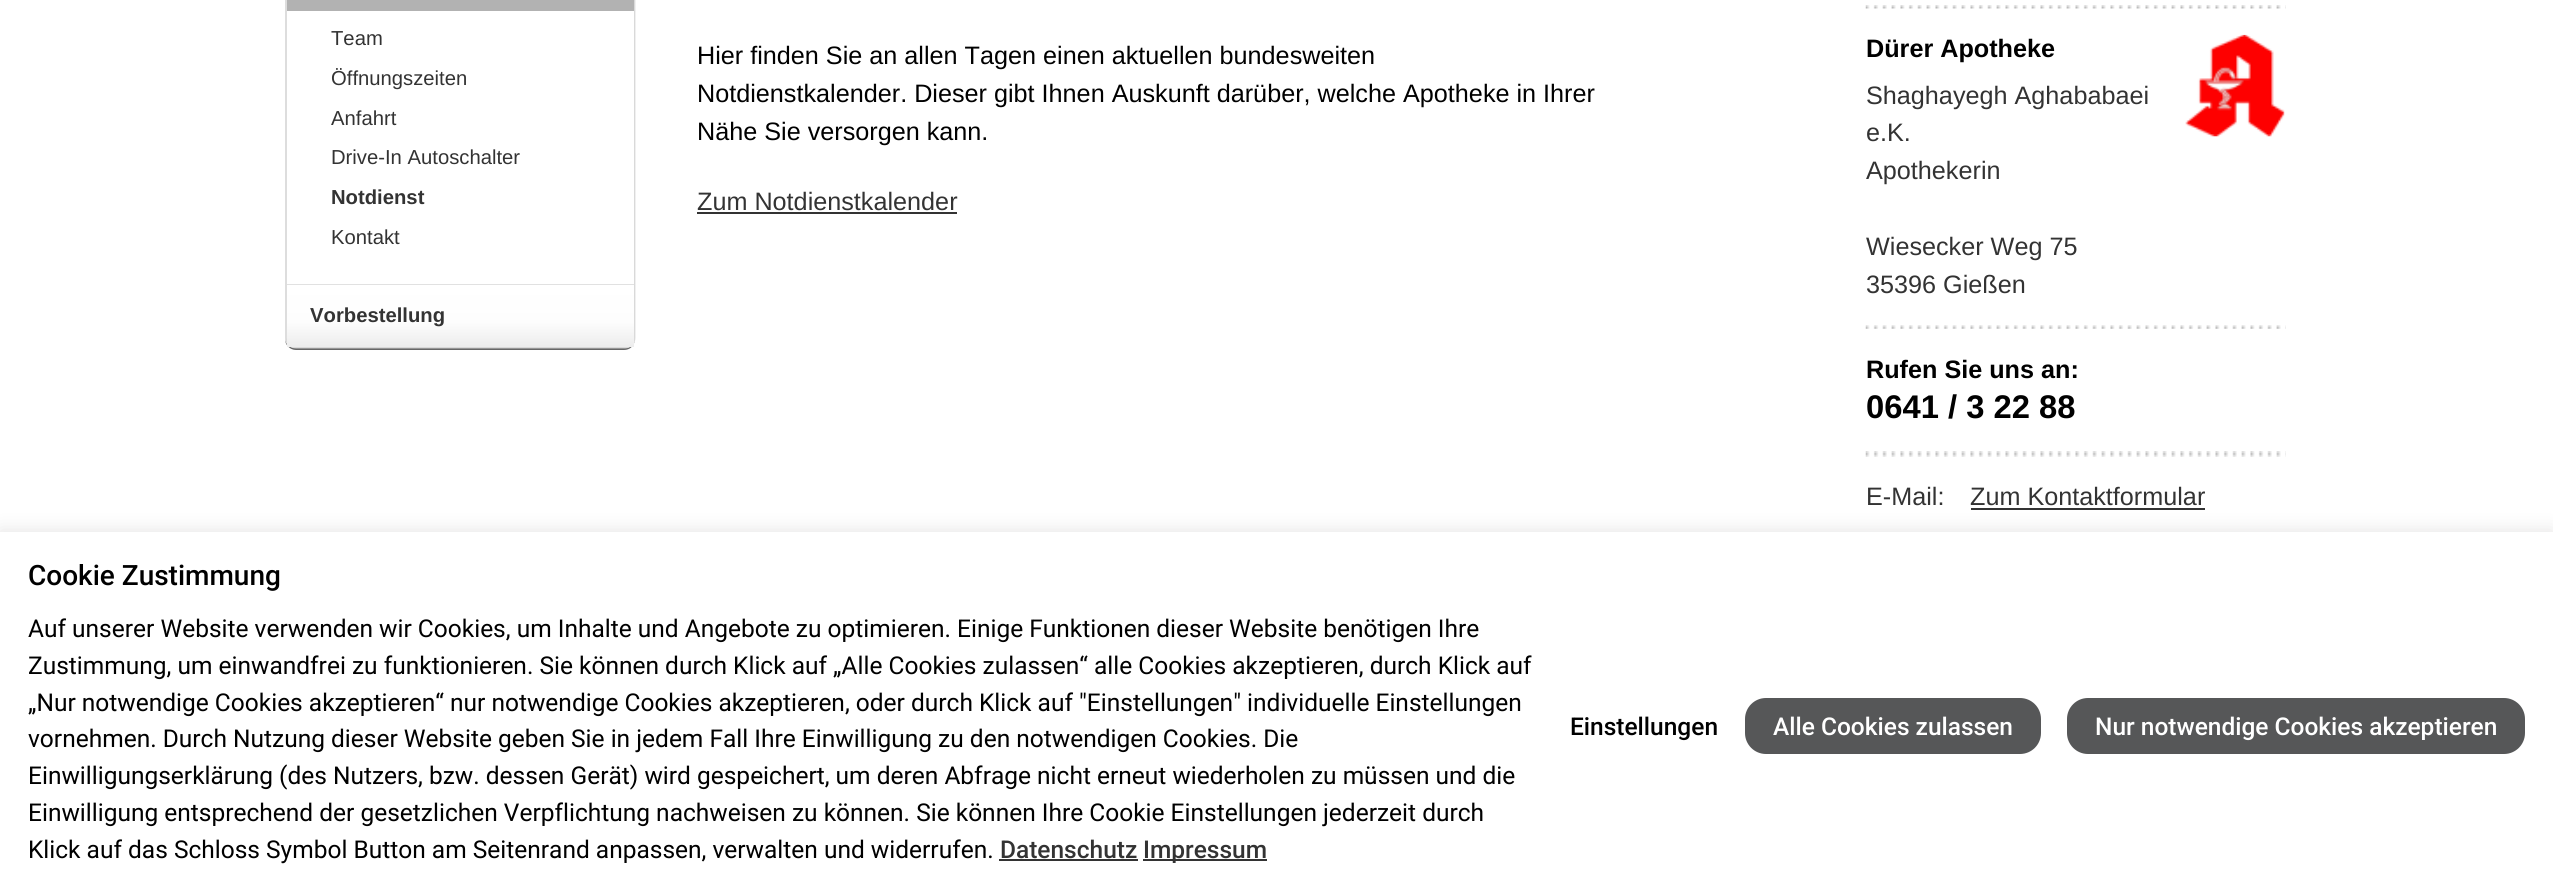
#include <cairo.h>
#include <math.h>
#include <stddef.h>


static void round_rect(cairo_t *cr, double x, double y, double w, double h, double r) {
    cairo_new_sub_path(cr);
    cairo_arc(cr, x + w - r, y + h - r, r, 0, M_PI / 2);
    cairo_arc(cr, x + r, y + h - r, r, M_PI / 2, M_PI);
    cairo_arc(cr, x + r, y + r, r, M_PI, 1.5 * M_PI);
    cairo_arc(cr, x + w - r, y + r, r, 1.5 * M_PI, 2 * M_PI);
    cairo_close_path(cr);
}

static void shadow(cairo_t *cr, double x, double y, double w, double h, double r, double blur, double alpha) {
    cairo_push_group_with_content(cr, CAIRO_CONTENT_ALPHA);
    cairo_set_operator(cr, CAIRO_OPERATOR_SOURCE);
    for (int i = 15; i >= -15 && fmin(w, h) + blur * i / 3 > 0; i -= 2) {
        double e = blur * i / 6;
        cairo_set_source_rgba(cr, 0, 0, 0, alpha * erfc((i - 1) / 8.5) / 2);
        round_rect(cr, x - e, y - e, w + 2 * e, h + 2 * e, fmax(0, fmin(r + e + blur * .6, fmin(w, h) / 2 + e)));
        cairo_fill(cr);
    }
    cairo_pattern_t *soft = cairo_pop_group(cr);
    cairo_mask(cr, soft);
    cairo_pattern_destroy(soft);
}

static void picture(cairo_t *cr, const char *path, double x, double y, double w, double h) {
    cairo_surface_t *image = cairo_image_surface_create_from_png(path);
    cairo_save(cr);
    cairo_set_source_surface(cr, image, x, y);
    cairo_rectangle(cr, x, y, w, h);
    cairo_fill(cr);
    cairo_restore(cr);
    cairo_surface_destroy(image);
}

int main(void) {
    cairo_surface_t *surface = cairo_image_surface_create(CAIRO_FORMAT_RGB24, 2553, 896);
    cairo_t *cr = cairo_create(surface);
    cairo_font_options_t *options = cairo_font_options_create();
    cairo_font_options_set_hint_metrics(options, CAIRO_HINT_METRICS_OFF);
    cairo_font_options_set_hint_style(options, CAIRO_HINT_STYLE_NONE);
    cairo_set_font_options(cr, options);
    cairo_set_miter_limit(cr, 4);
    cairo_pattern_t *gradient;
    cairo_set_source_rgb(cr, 1, 1, 1);
    cairo_paint(cr);
    cairo_set_source_rgb(cr, 0.404, 0.404, 0.404);
    cairo_new_path(cr);
    cairo_move_to(cr, 285, -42);
    cairo_line_to(cr, 285, 339);
    cairo_curve_to(cr, 285, 345, 290, 350, 296, 350);
    cairo_line_to(cr, 624, 350);
    cairo_curve_to(cr, 630, 350, 634, 346, 635, 340);
    cairo_curve_to(cr, 634, 345, 630, 348, 625, 348);
    cairo_line_to(cr, 296, 348);
    cairo_curve_to(cr, 290, 348, 285, 344, 285, 338);
    cairo_close_path(cr);
    cairo_fill(cr);
    cairo_new_path(cr);
    cairo_move_to(cr, 631.5, -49);
    cairo_curve_to(cr, 633.5, -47, 634.5, -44.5, 634.5, -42);
    cairo_line_to(cr, 634.5, 338);
    cairo_curve_to(cr, 634.5, 340.5, 633.5, 343, 631.5, 344.5);
    cairo_curve_to(cr, 630, 346.5, 627.5, 347.5, 625, 347.5);
    cairo_line_to(cr, 296, 347.5);
    cairo_curve_to(cr, 293, 347.5, 290.5, 346.5, 289, 344.5);
    cairo_curve_to(cr, 287, 343, 286, 340.5, 286, 338);
    cairo_line_to(cr, 286, -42);
    cairo_curve_to(cr, 286, -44.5, 287, -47, 289, -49);
    cairo_set_source_rgb(cr, 0.851, 0.851, 0.851);
    cairo_set_line_width(cr, 1.8);
    cairo_stroke(cr);
    cairo_set_source_rgb(cr, 0.698, 0.698, 0.698);
    cairo_rectangle(cr, 287, 0, 347, 11);
    cairo_fill(cr);
    cairo_set_source_rgb(cr, 1, 1, 1);
    cairo_rectangle(cr, 633, 11, 1, 273);
    cairo_fill(cr);
    cairo_select_font_face(cr, "Liberation Sans", CAIRO_FONT_SLANT_NORMAL, CAIRO_FONT_WEIGHT_NORMAL);
    cairo_set_font_size(cr, 20.25);
    cairo_set_source_rgb(cr, 0.2, 0.2, 0.2);
    cairo_move_to(cr, 331, 45);
    cairo_show_text(cr, "Team");
    cairo_move_to(cr, 331, 85);
    cairo_show_text(cr, "Öffnungszeiten");
    cairo_move_to(cr, 331, 125);
    cairo_show_text(cr, "Anfahrt");
    cairo_move_to(cr, 331, 164);
    cairo_show_text(cr, "Drive-In Autoschalter");
    cairo_select_font_face(cr, "Liberation Sans", CAIRO_FONT_SLANT_NORMAL, CAIRO_FONT_WEIGHT_BOLD);
    cairo_move_to(cr, 331, 204);
    cairo_show_text(cr, "Notdienst");
    cairo_select_font_face(cr, "Liberation Sans", CAIRO_FONT_SLANT_NORMAL, CAIRO_FONT_WEIGHT_NORMAL);
    cairo_move_to(cr, 331, 244);
    cairo_show_text(cr, "Kontakt");
    cairo_set_source_rgb(cr, 0.882, 0.882, 0.882);
    cairo_rectangle(cr, 287, 284, 347, 1);
    cairo_fill(cr);
    gradient = cairo_pattern_create_linear(460, 285, 460, 347);
    cairo_pattern_add_color_stop_rgba(gradient, 0.02, 1, 1, 1, 1);
    cairo_pattern_add_color_stop_rgba(gradient, 0.6, 0.992, 0.992, 0.992, 1);
    cairo_pattern_add_color_stop_rgba(gradient, 0.99, 0.929, 0.929, 0.929, 1);
    cairo_set_source(cr, gradient);
    cairo_pattern_destroy(gradient);
    cairo_rectangle(cr, 287, 285, 347, 62);
    cairo_fill(cr);
    cairo_select_font_face(cr, "Liberation Sans", CAIRO_FONT_SLANT_NORMAL, CAIRO_FONT_WEIGHT_BOLD);
    cairo_set_source_rgb(cr, 0.2, 0.2, 0.2);
    cairo_move_to(cr, 310, 322);
    cairo_show_text(cr, "Vorbestellung");
    cairo_select_font_face(cr, "Liberation Sans", CAIRO_FONT_SLANT_NORMAL, CAIRO_FONT_WEIGHT_NORMAL);
    cairo_set_font_size(cr, 25.2);
    cairo_set_source_rgb(cr, 0, 0, 0);
    cairo_move_to(cr, 697, 64);
    cairo_show_text(cr, "Hier finden Sie an allen Tagen einen aktuellen bundesweiten");
    cairo_move_to(cr, 697, 102);
    cairo_show_text(cr, "Notdienstkalender. Dieser gibt Ihnen Auskunft darüber, welche Apotheke in Ihrer");
    cairo_move_to(cr, 697, 140);
    cairo_show_text(cr, "Nähe Sie versorgen kann.");
    cairo_set_source_rgb(cr, 0.2, 0.2, 0.2);
    cairo_move_to(cr, 697, 210);
    cairo_show_text(cr, "Zum Notdienstkalender");
    cairo_rectangle(cr, 697, 212, 260, 2);
    cairo_fill(cr);
    picture(cr, "img1.png", 1865, 5, 421, 4);
    cairo_select_font_face(cr, "Liberation Sans", CAIRO_FONT_SLANT_NORMAL, CAIRO_FONT_WEIGHT_BOLD);
    cairo_set_source_rgb(cr, 0, 0, 0);
    cairo_move_to(cr, 1866, 57);
    cairo_show_text(cr, "Dürer Apotheke");
    cairo_select_font_face(cr, "Liberation Sans", CAIRO_FONT_SLANT_NORMAL, CAIRO_FONT_WEIGHT_NORMAL);
    cairo_set_source_rgb(cr, 0.2, 0.2, 0.2);
    cairo_move_to(cr, 1866, 104);
    cairo_show_text(cr, "Shaghayegh Aghababaei");
    cairo_move_to(cr, 1866, 141);
    cairo_show_text(cr, "e.K.");
    cairo_move_to(cr, 1866, 179);
    cairo_show_text(cr, "Apothekerin");
    cairo_move_to(cr, 1866, 255);
    cairo_show_text(cr, "Wiesecker Weg 75");
    cairo_move_to(cr, 1866, 293);
    cairo_show_text(cr, "35396 Gießen");
    picture(cr, "img2.png", 2185, 34, 100, 103);
    picture(cr, "img3.png", 1865, 325, 421, 4);
    cairo_select_font_face(cr, "Liberation Sans", CAIRO_FONT_SLANT_NORMAL, CAIRO_FONT_WEIGHT_BOLD);
    cairo_set_source_rgb(cr, 0, 0, 0);
    cairo_move_to(cr, 1866, 378);
    cairo_show_text(cr, "Rufen Sie uns an:");
    cairo_set_font_size(cr, 32.75);
    cairo_move_to(cr, 1866, 418);
    cairo_show_text(cr, "0641 / 3 22 88");
    picture(cr, "img4.png", 1865, 451, 421, 6);
    cairo_select_font_face(cr, "Liberation Sans", CAIRO_FONT_SLANT_NORMAL, CAIRO_FONT_WEIGHT_NORMAL);
    cairo_set_font_size(cr, 25.2);
    cairo_set_source_rgb(cr, 0.2, 0.2, 0.2);
    cairo_move_to(cr, 1866, 505);
    cairo_show_text(cr, "E-Mail:");
    cairo_move_to(cr, 1970, 505);
    cairo_show_text(cr, "Zum Kontaktformular");
    cairo_rectangle(cr, 1971, 508, 234, 2);
    cairo_fill(cr);
    cairo_set_source_rgb(cr, 0.675, 0.671, 0.671);
    shadow(cr, 0, 530, 2553, 364, 0, 9, 0.3);
    cairo_set_source_rgb(cr, 1, 1, 1);
    cairo_rectangle(cr, 0, 532, 2553, 364);
    cairo_fill(cr);
    cairo_select_font_face(cr, "Roboto Medium", CAIRO_FONT_SLANT_NORMAL, CAIRO_FONT_WEIGHT_NORMAL);
    cairo_set_font_size(cr, 28);
    cairo_set_source_rgb(cr, 0, 0, 0);
    cairo_move_to(cr, 28, 585);
    cairo_show_text(cr, "Cookie Zustimmung");
    cairo_select_font_face(cr, "Roboto", CAIRO_FONT_SLANT_NORMAL, CAIRO_FONT_WEIGHT_NORMAL);
    cairo_set_font_size(cr, 24.5);
    cairo_move_to(cr, 28, 637);
    cairo_show_text(cr, "Auf unserer Website verwenden wir Cookies, um Inhalte und Angebote zu optimieren. Einige Funktionen dieser Website benötigen Ihre");
    cairo_move_to(cr, 28, 674);
    cairo_show_text(cr, "Zustimmung, um einwandfrei zu funktionieren. Sie können durch Klick auf „Alle Cookies zulassen“ alle Cookies akzeptieren, durch Klick auf");
    cairo_move_to(cr, 28, 711);
    cairo_show_text(cr, "„Nur notwendige Cookies akzeptieren“ nur notwendige Cookies akzeptieren, oder durch Klick auf \"Einstellungen\" individuelle Einstellungen");
    cairo_move_to(cr, 28, 747);
    cairo_show_text(cr, "vornehmen. Durch Nutzung dieser Website geben Sie in jedem Fall Ihre Einwilligung zu den notwendigen Cookies. Die");
    cairo_move_to(cr, 28, 784);
    cairo_show_text(cr, "Einwilligungserklärung (des Nutzers, bzw. dessen Gerät) wird gespeichert, um deren Abfrage nicht erneut wiederholen zu müssen und die");
    cairo_move_to(cr, 28, 821);
    cairo_show_text(cr, "Einwilligung entsprechend der gesetzlichen Verpflichtung nachweisen zu können. Sie können Ihre Cookie Einstellungen jederzeit durch");
    cairo_move_to(cr, 28, 858);
    cairo_show_text(cr, "Klick auf das Schloss Symbol Button am Seitenrand anpassen, verwalten und widerrufen.");
    cairo_select_font_face(cr, "Roboto Medium", CAIRO_FONT_SLANT_NORMAL, CAIRO_FONT_WEIGHT_NORMAL);
    cairo_set_source_rgb(cr, 0.2, 0.2, 0.2);
    cairo_move_to(cr, 1000, 858);
    cairo_show_text(cr, "Datenschutz");
    cairo_rectangle(cr, 999, 859, 139, 2);
    cairo_fill(cr);
    cairo_rectangle(cr, 1143, 859, 124, 2);
    cairo_fill(cr);
    cairo_move_to(cr, 1143, 858);
    cairo_show_text(cr, "Impressum");
    cairo_set_source_rgb(cr, 0, 0, 0);
    cairo_move_to(cr, 1570, 735);
    cairo_show_text(cr, "Einstellungen");
    cairo_set_source_rgb(cr, 0.337, 0.341, 0.345);
    round_rect(cr, 1745, 698, 296, 56, 21);
    cairo_fill(cr);
    cairo_set_source_rgb(cr, 1, 1, 1);
    cairo_move_to(cr, 1773, 735);
    cairo_show_text(cr, "Alle Cookies zulassen");
    cairo_set_source_rgb(cr, 0.337, 0.341, 0.345);
    round_rect(cr, 2067, 698, 458, 56, 21);
    cairo_fill(cr);
    cairo_set_source_rgb(cr, 1, 1, 1);
    cairo_move_to(cr, 2095, 735);
    cairo_show_text(cr, "Nur notwendige Cookies akzeptieren");
    cairo_surface_write_to_png(surface, "page.png");
    cairo_font_options_destroy(options);
    cairo_destroy(cr);
    cairo_surface_destroy(surface);
    return 0;
}
